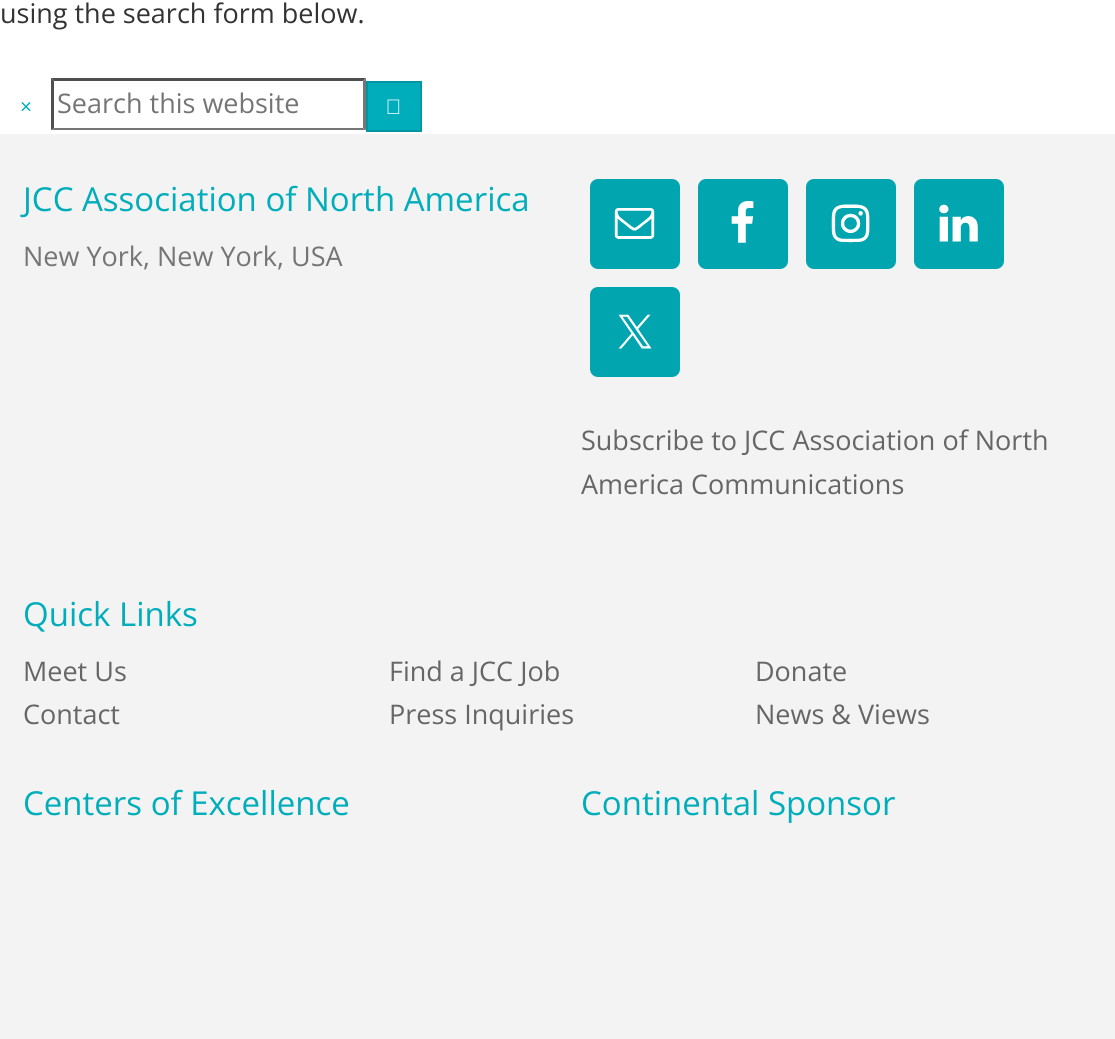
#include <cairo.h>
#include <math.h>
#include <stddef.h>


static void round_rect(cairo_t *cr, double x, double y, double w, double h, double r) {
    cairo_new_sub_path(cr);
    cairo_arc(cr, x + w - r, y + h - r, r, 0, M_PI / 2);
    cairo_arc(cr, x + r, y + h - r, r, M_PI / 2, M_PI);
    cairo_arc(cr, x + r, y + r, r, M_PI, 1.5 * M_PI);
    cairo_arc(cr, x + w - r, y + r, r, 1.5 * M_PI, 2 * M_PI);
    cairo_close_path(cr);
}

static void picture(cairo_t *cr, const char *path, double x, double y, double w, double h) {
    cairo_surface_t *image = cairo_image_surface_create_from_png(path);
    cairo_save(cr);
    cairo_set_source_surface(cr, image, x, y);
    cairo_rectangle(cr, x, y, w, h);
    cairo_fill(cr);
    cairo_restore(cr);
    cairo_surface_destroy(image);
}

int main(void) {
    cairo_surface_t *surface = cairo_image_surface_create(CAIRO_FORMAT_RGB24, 1115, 1039);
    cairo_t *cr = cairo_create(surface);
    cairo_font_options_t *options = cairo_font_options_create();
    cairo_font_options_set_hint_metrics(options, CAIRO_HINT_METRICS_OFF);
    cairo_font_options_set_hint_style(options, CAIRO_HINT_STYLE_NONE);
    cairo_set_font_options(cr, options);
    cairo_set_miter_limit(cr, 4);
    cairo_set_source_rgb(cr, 1, 1, 1);
    cairo_paint(cr);
    cairo_select_font_face(cr, "Open Sans", CAIRO_FONT_SLANT_NORMAL, CAIRO_FONT_WEIGHT_NORMAL);
    cairo_set_font_size(cr, 27);
    cairo_set_source_rgb(cr, 0.2, 0.2, 0.2);
    cairo_move_to(cr, 0, 23);
    cairo_show_text(cr, "using the search form below.");
    cairo_set_font_size(cr, 21);
    cairo_set_source_rgb(cr, 0, 0.678, 0.733);
    cairo_move_to(cr, 20, 114);
    cairo_show_text(cr, "×");
    cairo_set_source_rgb(cr, 0.31, 0.31, 0.31);
    cairo_new_path(cr);
    cairo_move_to(cr, 51, 78);
    cairo_line_to(cr, 366, 78);
    cairo_line_to(cr, 363, 81);
    cairo_line_to(cr, 54, 81);
    cairo_close_path(cr);
    cairo_fill(cr);
    cairo_set_source_rgb(cr, 0.463, 0.463, 0.463);
    cairo_new_path(cr);
    cairo_move_to(cr, 366, 78);
    cairo_line_to(cr, 366, 130);
    cairo_line_to(cr, 363, 128);
    cairo_line_to(cr, 363, 81);
    cairo_close_path(cr);
    cairo_fill(cr);
    cairo_new_path(cr);
    cairo_move_to(cr, 366, 130);
    cairo_line_to(cr, 51, 130);
    cairo_line_to(cr, 54, 128);
    cairo_line_to(cr, 363, 128);
    cairo_close_path(cr);
    cairo_fill(cr);
    cairo_set_source_rgb(cr, 0.31, 0.31, 0.31);
    cairo_new_path(cr);
    cairo_move_to(cr, 51, 130);
    cairo_line_to(cr, 51, 78);
    cairo_line_to(cr, 54, 81);
    cairo_line_to(cr, 54, 128);
    cairo_close_path(cr);
    cairo_fill(cr);
    cairo_set_font_size(cr, 27);
    cairo_set_source_rgb(cr, 0.459, 0.459, 0.459);
    cairo_move_to(cr, 57, 113);
    cairo_show_text(cr, "Search this website");
    cairo_set_source_rgb(cr, 0, 0.678, 0.733);
    cairo_rectangle(cr, 367, 82, 54, 49);
    cairo_fill_preserve(cr);
    cairo_set_source_rgb(cr, 0, 0.584, 0.635);
    cairo_stroke(cr);
    picture(cr, "img1.png", 387, 99, 13, 15);
    cairo_set_source_rgb(cr, 0.953, 0.953, 0.953);
    cairo_rectangle(cr, 0, 134, 1115, 905);
    cairo_fill(cr);
    cairo_set_font_size(cr, 33);
    cairo_set_source_rgb(cr, 0, 0.678, 0.733);
    cairo_move_to(cr, 23, 211);
    cairo_show_text(cr, "JCC Association of North America");
    cairo_set_font_size(cr, 27);
    cairo_set_source_rgb(cr, 0.459, 0.459, 0.459);
    cairo_move_to(cr, 23, 266);
    cairo_show_text(cr, "New York, New York, USA");
    cairo_set_source_rgb(cr, 0, 0.647, 0.69);
    round_rect(cr, 590, 179, 90, 90, 8);
    cairo_fill(cr);
    picture(cr, "img2.png", 614, 208, 41, 31);
    round_rect(cr, 698, 179, 90, 90, 8);
    cairo_fill(cr);
    picture(cr, "img3.png", 731, 201, 23, 42);
    round_rect(cr, 806, 179, 90, 90, 8);
    cairo_fill(cr);
    picture(cr, "img4.png", 831, 204, 39, 39);
    round_rect(cr, 914, 179, 90, 90, 8);
    cairo_fill(cr);
    picture(cr, "img5.png", 939, 204, 39, 38);
    round_rect(cr, 590, 287, 90, 90, 8);
    cairo_fill(cr);
    picture(cr, "img6.png", 618, 314, 34, 35);
    cairo_set_source_rgb(cr, 0.4, 0.4, 0.4);
    cairo_move_to(cr, 581, 450);
    cairo_show_text(cr, "Subscribe to JCC Association of North");
    cairo_move_to(cr, 581, 494);
    cairo_show_text(cr, "America Communications");
    cairo_set_font_size(cr, 33);
    cairo_set_source_rgb(cr, 0, 0.678, 0.733);
    cairo_move_to(cr, 23, 626);
    cairo_show_text(cr, "Quick Links");
    cairo_set_font_size(cr, 27);
    cairo_set_source_rgb(cr, 0.4, 0.4, 0.4);
    cairo_move_to(cr, 23, 681);
    cairo_show_text(cr, "Meet Us");
    cairo_move_to(cr, 389, 681);
    cairo_show_text(cr, "Find a JCC Job");
    cairo_move_to(cr, 755, 681);
    cairo_show_text(cr, "Donate");
    cairo_move_to(cr, 23, 724);
    cairo_show_text(cr, "Contact");
    cairo_move_to(cr, 389, 724);
    cairo_show_text(cr, "Press Inquiries");
    cairo_move_to(cr, 755, 724);
    cairo_show_text(cr, "News & Views");
    cairo_set_font_size(cr, 33);
    cairo_set_source_rgb(cr, 0, 0.678, 0.733);
    cairo_move_to(cr, 23, 815);
    cairo_show_text(cr, "Centers of Excellence");
    cairo_move_to(cr, 581, 815);
    cairo_show_text(cr, "Continental Sponsor");
    cairo_surface_write_to_png(surface, "page.png");
    cairo_font_options_destroy(options);
    cairo_destroy(cr);
    cairo_surface_destroy(surface);
    return 0;
}
